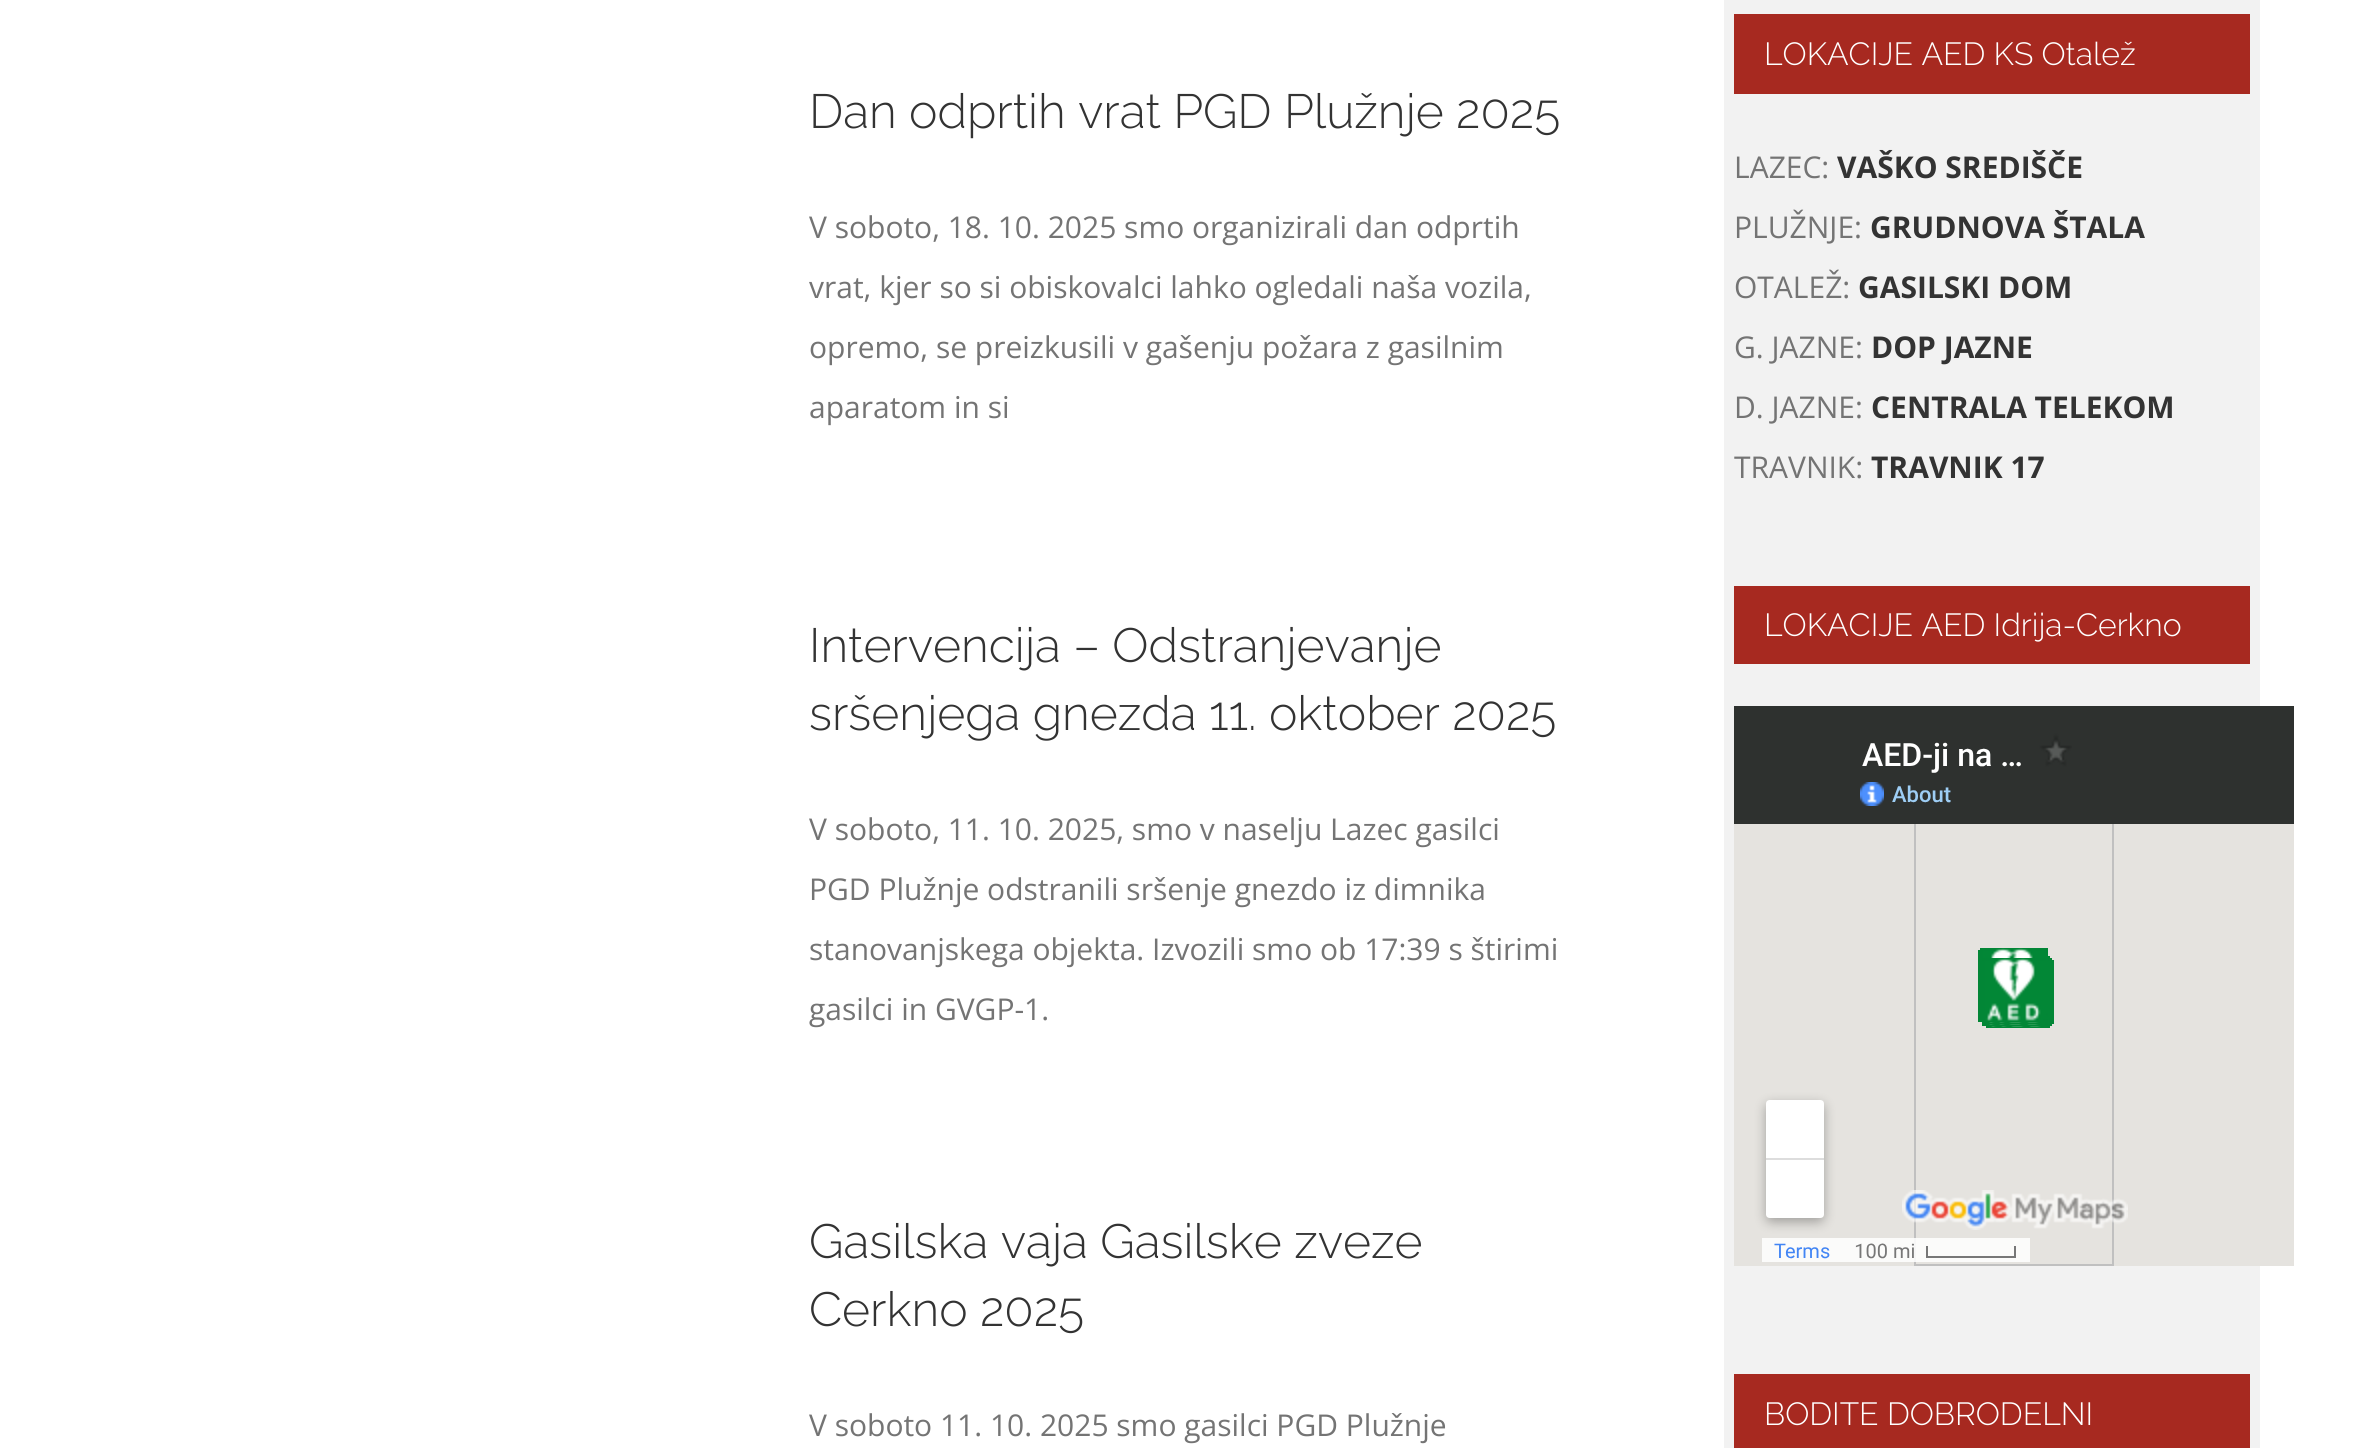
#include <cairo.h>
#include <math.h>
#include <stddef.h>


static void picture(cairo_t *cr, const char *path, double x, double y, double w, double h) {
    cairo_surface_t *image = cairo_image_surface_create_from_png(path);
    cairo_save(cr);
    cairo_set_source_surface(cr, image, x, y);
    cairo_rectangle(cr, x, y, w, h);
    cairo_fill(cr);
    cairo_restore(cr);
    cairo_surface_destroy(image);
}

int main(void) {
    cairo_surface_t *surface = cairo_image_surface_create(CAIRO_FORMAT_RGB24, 2378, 1448);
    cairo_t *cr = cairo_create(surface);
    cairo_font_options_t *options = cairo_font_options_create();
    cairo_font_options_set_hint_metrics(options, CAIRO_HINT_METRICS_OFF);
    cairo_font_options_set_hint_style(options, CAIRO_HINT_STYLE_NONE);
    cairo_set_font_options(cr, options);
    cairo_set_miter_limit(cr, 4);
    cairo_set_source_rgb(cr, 1, 1, 1);
    cairo_paint(cr);
    cairo_select_font_face(cr, "Raleway Light", CAIRO_FONT_SLANT_NORMAL, CAIRO_FONT_WEIGHT_NORMAL);
    cairo_set_font_size(cr, 48);
    cairo_set_source_rgb(cr, 0.2, 0.2, 0.2);
    cairo_move_to(cr, 809, 128);
    cairo_show_text(cr, "Dan odprtih vrat PGD Plužnje 2025");
    cairo_select_font_face(cr, "Open Sans", CAIRO_FONT_SLANT_NORMAL, CAIRO_FONT_WEIGHT_NORMAL);
    cairo_set_font_size(cr, 30);
    cairo_set_source_rgb(cr, 0.455, 0.455, 0.455);
    cairo_move_to(cr, 809, 238);
    cairo_show_text(cr, "V soboto, 18. 10. 2025 smo organizirali dan odprtih");
    cairo_move_to(cr, 809, 298);
    cairo_show_text(cr, "vrat, kjer so si obiskovalci lahko ogledali naša vozila,");
    cairo_move_to(cr, 809, 358);
    cairo_show_text(cr, "opremo, se preizkusili v gašenju požara z gasilnim");
    cairo_move_to(cr, 809, 418);
    cairo_show_text(cr, "aparatom in si");
    cairo_select_font_face(cr, "Raleway Light", CAIRO_FONT_SLANT_NORMAL, CAIRO_FONT_WEIGHT_NORMAL);
    cairo_set_font_size(cr, 48);
    cairo_set_source_rgb(cr, 0.2, 0.2, 0.2);
    cairo_move_to(cr, 809, 662);
    cairo_show_text(cr, "Intervencija – Odstranjevanje");
    cairo_move_to(cr, 809, 730);
    cairo_show_text(cr, "sršenjega gnezda 11. oktober 2025");
    cairo_select_font_face(cr, "Open Sans", CAIRO_FONT_SLANT_NORMAL, CAIRO_FONT_WEIGHT_NORMAL);
    cairo_set_font_size(cr, 30);
    cairo_set_source_rgb(cr, 0.455, 0.455, 0.455);
    cairo_move_to(cr, 809, 840);
    cairo_show_text(cr, "V soboto, 11. 10. 2025, smo v naselju Lazec gasilci");
    cairo_move_to(cr, 809, 900);
    cairo_show_text(cr, "PGD Plužnje odstranili sršenje gnezdo iz dimnika");
    cairo_move_to(cr, 809, 960);
    cairo_show_text(cr, "stanovanjskega objekta. Izvozili smo ob 17:39 s štirimi");
    cairo_move_to(cr, 809, 1020);
    cairo_show_text(cr, "gasilci in GVGP-1.");
    cairo_select_font_face(cr, "Raleway Light", CAIRO_FONT_SLANT_NORMAL, CAIRO_FONT_WEIGHT_NORMAL);
    cairo_set_font_size(cr, 48);
    cairo_set_source_rgb(cr, 0.2, 0.2, 0.2);
    cairo_move_to(cr, 809, 1258);
    cairo_show_text(cr, "Gasilska vaja Gasilske zveze");
    cairo_move_to(cr, 809, 1326);
    cairo_show_text(cr, "Cerkno 2025");
    cairo_select_font_face(cr, "Open Sans", CAIRO_FONT_SLANT_NORMAL, CAIRO_FONT_WEIGHT_NORMAL);
    cairo_set_font_size(cr, 30);
    cairo_set_source_rgb(cr, 0.455, 0.455, 0.455);
    cairo_move_to(cr, 809, 1436);
    cairo_show_text(cr, "V soboto 11. 10. 2025 smo gasilci PGD Plužnje");
    cairo_set_source_rgb(cr, 0.949, 0.949, 0.949);
    cairo_rectangle(cr, 1724, 0, 536, 1448);
    cairo_fill(cr);
    cairo_set_source_rgb(cr, 0.655, 0.161, 0.125);
    cairo_rectangle(cr, 1734, 14, 516, 80);
    cairo_fill(cr);
    cairo_select_font_face(cr, "Raleway Light", CAIRO_FONT_SLANT_NORMAL, CAIRO_FONT_WEIGHT_NORMAL);
    cairo_set_font_size(cr, 32);
    cairo_set_source_rgb(cr, 1, 1, 1);
    cairo_move_to(cr, 1764, 65);
    cairo_show_text(cr, "LOKACIJE AED KS Otalež");
    cairo_select_font_face(cr, "Open Sans", CAIRO_FONT_SLANT_NORMAL, CAIRO_FONT_WEIGHT_NORMAL);
    cairo_set_font_size(cr, 30);
    cairo_set_source_rgb(cr, 0.455, 0.455, 0.455);
    cairo_move_to(cr, 1734, 178);
    cairo_show_text(cr, "LAZEC:");
    cairo_select_font_face(cr, "Open Sans", CAIRO_FONT_SLANT_NORMAL, CAIRO_FONT_WEIGHT_BOLD);
    cairo_set_source_rgb(cr, 0.2, 0.2, 0.2);
    cairo_move_to(cr, 1837, 178);
    cairo_show_text(cr, "VAŠKO SREDIŠČE");
    cairo_select_font_face(cr, "Open Sans", CAIRO_FONT_SLANT_NORMAL, CAIRO_FONT_WEIGHT_NORMAL);
    cairo_set_source_rgb(cr, 0.455, 0.455, 0.455);
    cairo_move_to(cr, 1734, 238);
    cairo_show_text(cr, "PLUŽNJE:");
    cairo_select_font_face(cr, "Open Sans", CAIRO_FONT_SLANT_NORMAL, CAIRO_FONT_WEIGHT_BOLD);
    cairo_set_source_rgb(cr, 0.2, 0.2, 0.2);
    cairo_move_to(cr, 1870, 238);
    cairo_show_text(cr, "GRUDNOVA ŠTALA");
    cairo_select_font_face(cr, "Open Sans", CAIRO_FONT_SLANT_NORMAL, CAIRO_FONT_WEIGHT_NORMAL);
    cairo_set_source_rgb(cr, 0.455, 0.455, 0.455);
    cairo_move_to(cr, 1734, 298);
    cairo_show_text(cr, "OTALEŽ:");
    cairo_select_font_face(cr, "Open Sans", CAIRO_FONT_SLANT_NORMAL, CAIRO_FONT_WEIGHT_BOLD);
    cairo_set_source_rgb(cr, 0.2, 0.2, 0.2);
    cairo_move_to(cr, 1858, 298);
    cairo_show_text(cr, "GASILSKI DOM");
    cairo_select_font_face(cr, "Open Sans", CAIRO_FONT_SLANT_NORMAL, CAIRO_FONT_WEIGHT_NORMAL);
    cairo_set_source_rgb(cr, 0.455, 0.455, 0.455);
    cairo_move_to(cr, 1734, 358);
    cairo_show_text(cr, "G. JAZNE:");
    cairo_select_font_face(cr, "Open Sans", CAIRO_FONT_SLANT_NORMAL, CAIRO_FONT_WEIGHT_BOLD);
    cairo_set_source_rgb(cr, 0.2, 0.2, 0.2);
    cairo_move_to(cr, 1871, 358);
    cairo_show_text(cr, "DOP JAZNE");
    cairo_select_font_face(cr, "Open Sans", CAIRO_FONT_SLANT_NORMAL, CAIRO_FONT_WEIGHT_NORMAL);
    cairo_set_source_rgb(cr, 0.455, 0.455, 0.455);
    cairo_move_to(cr, 1734, 418);
    cairo_show_text(cr, "D. JAZNE:");
    cairo_select_font_face(cr, "Open Sans", CAIRO_FONT_SLANT_NORMAL, CAIRO_FONT_WEIGHT_BOLD);
    cairo_set_source_rgb(cr, 0.2, 0.2, 0.2);
    cairo_move_to(cr, 1871, 418);
    cairo_show_text(cr, "CENTRALA TELEKOM");
    cairo_select_font_face(cr, "Open Sans", CAIRO_FONT_SLANT_NORMAL, CAIRO_FONT_WEIGHT_NORMAL);
    cairo_set_source_rgb(cr, 0.455, 0.455, 0.455);
    cairo_move_to(cr, 1734, 478);
    cairo_show_text(cr, "TRAVNIK:");
    cairo_select_font_face(cr, "Open Sans", CAIRO_FONT_SLANT_NORMAL, CAIRO_FONT_WEIGHT_BOLD);
    cairo_set_source_rgb(cr, 0.2, 0.2, 0.2);
    cairo_move_to(cr, 1871, 478);
    cairo_show_text(cr, "TRAVNIK 17");
    cairo_set_source_rgb(cr, 0.655, 0.161, 0.125);
    cairo_rectangle(cr, 1734, 586, 516, 78);
    cairo_fill(cr);
    cairo_select_font_face(cr, "Raleway Light", CAIRO_FONT_SLANT_NORMAL, CAIRO_FONT_WEIGHT_NORMAL);
    cairo_set_font_size(cr, 32);
    cairo_set_source_rgb(cr, 1, 1, 1);
    cairo_move_to(cr, 1764, 636);
    cairo_show_text(cr, "LOKACIJE AED Idrija-Cerkno");
    picture(cr, "img1.png", 1734, 706, 560, 560);
    cairo_set_source_rgb(cr, 0.655, 0.161, 0.125);
    cairo_rectangle(cr, 1734, 1374, 516, 74);
    cairo_fill(cr);
    cairo_set_source_rgb(cr, 1, 1, 1);
    cairo_move_to(cr, 1764, 1425);
    cairo_show_text(cr, "BODITE DOBRODELNI");
    cairo_surface_write_to_png(surface, "page.png");
    cairo_font_options_destroy(options);
    cairo_destroy(cr);
    cairo_surface_destroy(surface);
    return 0;
}
